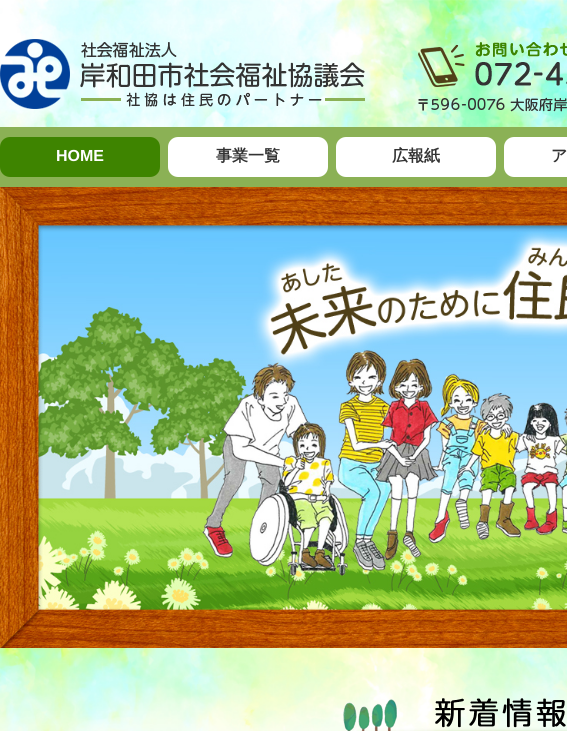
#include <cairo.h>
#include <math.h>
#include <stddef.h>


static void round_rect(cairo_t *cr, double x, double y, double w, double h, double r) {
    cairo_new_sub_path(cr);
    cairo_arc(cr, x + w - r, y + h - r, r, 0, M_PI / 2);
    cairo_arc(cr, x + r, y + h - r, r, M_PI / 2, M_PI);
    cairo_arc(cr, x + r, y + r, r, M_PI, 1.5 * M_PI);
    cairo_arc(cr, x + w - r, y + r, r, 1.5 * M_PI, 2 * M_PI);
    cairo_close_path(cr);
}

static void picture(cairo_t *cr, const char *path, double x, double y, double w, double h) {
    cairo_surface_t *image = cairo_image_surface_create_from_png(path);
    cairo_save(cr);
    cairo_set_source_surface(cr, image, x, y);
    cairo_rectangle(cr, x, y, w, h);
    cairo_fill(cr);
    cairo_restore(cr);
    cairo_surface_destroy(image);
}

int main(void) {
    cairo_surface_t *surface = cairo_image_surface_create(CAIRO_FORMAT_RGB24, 567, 731);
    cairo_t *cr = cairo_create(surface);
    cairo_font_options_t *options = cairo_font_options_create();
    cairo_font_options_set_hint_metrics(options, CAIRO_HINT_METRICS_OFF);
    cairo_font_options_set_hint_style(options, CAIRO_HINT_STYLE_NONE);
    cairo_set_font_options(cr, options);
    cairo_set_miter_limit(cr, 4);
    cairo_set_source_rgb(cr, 1, 1, 1);
    cairo_paint(cr);
    picture(cr, "img1.png", 0, 0, 567, 731);
    picture(cr, "img2.png", 0, 39, 365, 70);
    picture(cr, "img3.png", 418, 42, 149, 45);
    picture(cr, "img4.png", 418, 97, 149, 15);
    cairo_set_source_rgb(cr, 0.545, 0.694, 0.333);
    cairo_rectangle(cr, 0, 127, 567, 60);
    cairo_fill(cr);
    cairo_set_source_rgb(cr, 0.243, 0.518, 0);
    round_rect(cr, 0, 137, 160, 40, 10);
    cairo_fill(cr);
    cairo_select_font_face(cr, "Liberation Sans", CAIRO_FONT_SLANT_NORMAL, CAIRO_FONT_WEIGHT_BOLD);
    cairo_set_font_size(cr, 16);
    cairo_set_source_rgb(cr, 1, 1, 1);
    cairo_move_to(cr, 56, 161);
    cairo_show_text(cr, "HOME");
    round_rect(cr, 168, 137, 160, 40, 10);
    cairo_fill(cr);
    cairo_select_font_face(cr, "WenQuanYi Zen Hei", CAIRO_FONT_SLANT_NORMAL, CAIRO_FONT_WEIGHT_BOLD);
    cairo_set_source_rgb(cr, 0.2, 0.2, 0.2);
    cairo_move_to(cr, 216, 161);
    cairo_show_text(cr, "事業一覧");
    cairo_set_source_rgb(cr, 1, 1, 1);
    round_rect(cr, 336, 137, 160, 40, 10);
    cairo_fill(cr);
    cairo_set_source_rgb(cr, 0.2, 0.2, 0.2);
    cairo_move_to(cr, 392, 161);
    cairo_show_text(cr, "広報紙");
    cairo_set_source_rgb(cr, 1, 1, 1);
    round_rect(cr, 504, 137, 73, 40, 10);
    cairo_fill(cr);
    cairo_set_source_rgb(cr, 0.2, 0.2, 0.2);
    cairo_move_to(cr, 551, 161);
    cairo_show_text(cr, "ア");
    picture(cr, "img5.png", 0, 187, 567, 461);
    picture(cr, "img6.png", 343, 698, 224, 33);
    cairo_surface_write_to_png(surface, "page.png");
    cairo_font_options_destroy(options);
    cairo_destroy(cr);
    cairo_surface_destroy(surface);
    return 0;
}
